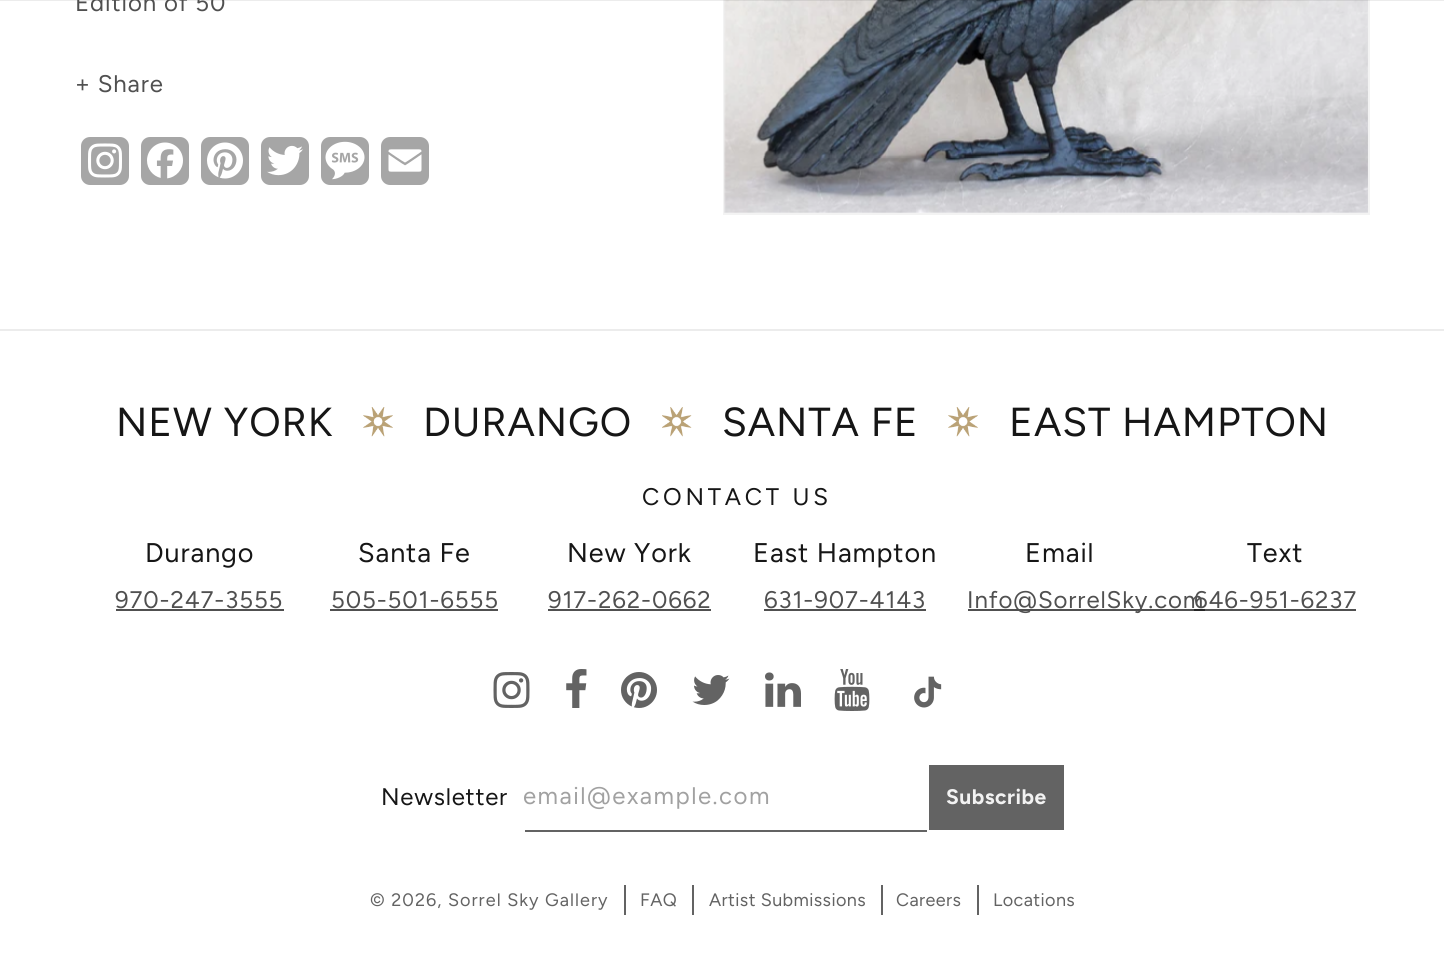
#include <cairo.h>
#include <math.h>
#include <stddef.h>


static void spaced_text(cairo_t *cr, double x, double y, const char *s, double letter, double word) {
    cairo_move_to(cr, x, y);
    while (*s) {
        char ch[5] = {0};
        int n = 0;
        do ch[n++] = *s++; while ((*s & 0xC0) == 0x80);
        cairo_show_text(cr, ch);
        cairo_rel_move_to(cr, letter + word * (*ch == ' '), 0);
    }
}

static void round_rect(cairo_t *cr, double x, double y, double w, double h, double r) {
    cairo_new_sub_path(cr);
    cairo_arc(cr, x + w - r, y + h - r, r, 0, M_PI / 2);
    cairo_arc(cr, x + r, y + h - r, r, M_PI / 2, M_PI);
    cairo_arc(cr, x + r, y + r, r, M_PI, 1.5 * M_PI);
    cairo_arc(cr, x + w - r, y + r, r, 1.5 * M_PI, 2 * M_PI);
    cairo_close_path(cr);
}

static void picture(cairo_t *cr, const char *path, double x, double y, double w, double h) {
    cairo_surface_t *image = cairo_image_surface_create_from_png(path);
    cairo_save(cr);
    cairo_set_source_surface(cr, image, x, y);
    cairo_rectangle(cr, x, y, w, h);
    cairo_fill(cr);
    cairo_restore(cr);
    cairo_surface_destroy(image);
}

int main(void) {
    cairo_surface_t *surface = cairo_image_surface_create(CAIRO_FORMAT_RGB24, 1444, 960);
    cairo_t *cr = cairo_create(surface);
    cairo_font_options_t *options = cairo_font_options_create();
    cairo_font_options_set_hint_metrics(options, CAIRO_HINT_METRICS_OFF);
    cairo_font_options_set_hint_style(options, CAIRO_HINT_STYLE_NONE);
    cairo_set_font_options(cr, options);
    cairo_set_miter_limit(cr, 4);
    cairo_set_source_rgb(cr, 1, 1, 1);
    cairo_paint(cr);
    cairo_set_source_rgb(cr, 0.314, 0.314, 0.314);
    cairo_rectangle(cr, 1205, 609, 151, 2);
    cairo_fill(cr);
    cairo_rectangle(cr, 724, -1, 645, 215);
    cairo_set_source_rgb(cr, 0.953, 0.953, 0.953);
    cairo_stroke(cr);
    picture(cr, "img7.png", 724, 0, 644, 213);
    cairo_set_source_rgba(cr, 0.086, 0.086, 0.086, 0.08);
    cairo_rectangle(cr, 0, 0, 1444, 1);
    cairo_fill(cr);
    cairo_select_font_face(cr, "Figtree", CAIRO_FONT_SLANT_NORMAL, CAIRO_FONT_WEIGHT_NORMAL);
    cairo_set_font_size(cr, 24);
    cairo_set_source_rgb(cr, 0.314, 0.314, 0.314);
    spaced_text(cr, 75, 11, "Edition of 50", 0.9, 0);
    spaced_text(cr, 75, 92, "+ Share", 0.9, 0);
    cairo_set_source_rgb(cr, 0.651, 0.651, 0.651);
    round_rect(cr, 81, 137, 48, 48, 9);
    cairo_fill(cr);
    picture(cr, "img1.png", 88, 143, 34, 35);
    round_rect(cr, 141, 137, 48, 48, 9);
    cairo_fill(cr);
    picture(cr, "img2.png", 147, 142, 36, 37);
    round_rect(cr, 201, 137, 48, 48, 9);
    cairo_fill(cr);
    picture(cr, "img3.png", 207, 142, 36, 37);
    round_rect(cr, 261, 137, 48, 48, 9);
    cairo_fill(cr);
    picture(cr, "img4.png", 267, 145, 36, 31);
    round_rect(cr, 321, 137, 48, 48, 9);
    cairo_fill(cr);
    picture(cr, "img5.png", 325, 141, 40, 39);
    round_rect(cr, 381, 137, 48, 48, 9);
    cairo_fill(cr);
    picture(cr, "img6.png", 388, 149, 34, 23);
    cairo_set_source_rgb(cr, 0.925, 0.925, 0.925);
    cairo_rectangle(cr, 0, 329, 1444, 2);
    cairo_fill(cr);
    cairo_set_font_size(cr, 40.5);
    cairo_set_source_rgb(cr, 0.086, 0.086, 0.086);
    spaced_text(cr, 116, 436, "NEW YORK", 0.9, 0);
    picture(cr, "img8.png", 363, 407, 30, 30);
    spaced_text(cr, 423, 436, "DURANGO", 0.9, 0);
    picture(cr, "img9.png", 662, 407, 30, 30);
    spaced_text(cr, 722, 436, "SANTA FE", 0.9, 0);
    picture(cr, "img10.png", 948, 407, 30, 30);
    spaced_text(cr, 1009, 436, "EAST HAMPTON", 0.9, 0);
    cairo_set_font_size(cr, 24);
    spaced_text(cr, 642, 505, "CONTACT US", 3.75, 0);
    cairo_set_font_size(cr, 27);
    spaced_text(cr, 145, 562, "Durango", 0.9, 0);
    cairo_set_font_size(cr, 24);
    cairo_set_source_rgb(cr, 0.314, 0.314, 0.314);
    spaced_text(cr, 115, 608, "970-247-3555", 0.9, 0);
    cairo_rectangle(cr, 116, 609, 168, 2);
    cairo_fill(cr);
    cairo_set_font_size(cr, 27);
    cairo_set_source_rgb(cr, 0.086, 0.086, 0.086);
    spaced_text(cr, 358, 562, "Santa Fe", 0.9, 0);
    cairo_set_font_size(cr, 24);
    cairo_set_source_rgb(cr, 0.314, 0.314, 0.314);
    spaced_text(cr, 331, 608, "505-501-6555", 0.9, 0);
    cairo_rectangle(cr, 330, 609, 168, 2);
    cairo_fill(cr);
    cairo_set_font_size(cr, 27);
    cairo_set_source_rgb(cr, 0.086, 0.086, 0.086);
    spaced_text(cr, 567, 562, "New York", 0.9, 0);
    cairo_set_font_size(cr, 24);
    cairo_set_source_rgb(cr, 0.314, 0.314, 0.314);
    spaced_text(cr, 548, 608, "917-262-0662", 0.9, 0);
    cairo_rectangle(cr, 548, 609, 163, 2);
    cairo_fill(cr);
    cairo_set_font_size(cr, 27);
    cairo_set_source_rgb(cr, 0.086, 0.086, 0.086);
    spaced_text(cr, 753, 562, "East Hampton", 0.9, 0);
    cairo_set_font_size(cr, 24);
    cairo_set_source_rgb(cr, 0.314, 0.314, 0.314);
    spaced_text(cr, 764, 608, "631-907-4143", 0.9, 0);
    cairo_rectangle(cr, 764, 609, 162, 2);
    cairo_fill(cr);
    cairo_set_font_size(cr, 27);
    cairo_set_source_rgb(cr, 0.086, 0.086, 0.086);
    spaced_text(cr, 1025, 562, "Email", 0.9, 0);
    cairo_set_source_rgb(cr, 0.314, 0.314, 0.314);
    cairo_rectangle(cr, 968, 609, 226, 2);
    cairo_fill(cr);
    cairo_set_source_rgb(cr, 0.145, 0.145, 0.145);
    cairo_rectangle(cr, 1194, 609, 11, 2);
    cairo_fill(cr);
    cairo_set_font_size(cr, 24);
    cairo_set_source_rgb(cr, 0.314, 0.314, 0.314);
    spaced_text(cr, 967, 608, "Info@SorrelSky.com", 0.9, 0);
    cairo_set_font_size(cr, 27);
    cairo_set_source_rgb(cr, 0.086, 0.086, 0.086);
    spaced_text(cr, 1247, 562, "Text", 0.9, 0);
    cairo_set_font_size(cr, 24);
    cairo_set_source_rgb(cr, 0.314, 0.314, 0.314);
    spaced_text(cr, 1194, 608, "646-951-6237", 0.9, 0);
    picture(cr, "img11.png", 493, 672, 37, 36);
    picture(cr, "img12.png", 566, 669, 21, 39);
    picture(cr, "img13.png", 621, 672, 36, 36);
    picture(cr, "img14.png", 692, 675, 38, 30);
    picture(cr, "img15.png", 765, 672, 36, 35);
    picture(cr, "img16.png", 834, 669, 36, 42);
    picture(cr, "img17.png", 914, 676, 28, 32);
    cairo_set_source_rgb(cr, 0.086, 0.086, 0.086);
    spaced_text(cr, 381, 805, "Newsletter", 0.75, 0);
    cairo_set_source_rgb(cr, 0.631, 0.631, 0.631);
    spaced_text(cr, 523, 804, "email@example.com", 1.5, 0);
    cairo_set_source_rgb(cr, 0.388, 0.388, 0.388);
    cairo_rectangle(cr, 929, 765, 135, 65);
    cairo_fill(cr);
    cairo_select_font_face(cr, "Figtree", CAIRO_FONT_SLANT_NORMAL, CAIRO_FONT_WEIGHT_BOLD);
    cairo_set_font_size(cr, 21);
    cairo_set_source_rgb(cr, 0.949, 0.949, 0.949);
    spaced_text(cr, 946, 804, "Subscribe", 0.5, 0);
    cairo_set_source_rgb(cr, 0.388, 0.388, 0.388);
    cairo_rectangle(cr, 525, 830, 402, 2);
    cairo_fill(cr);
    cairo_select_font_face(cr, "Figtree", CAIRO_FONT_SLANT_NORMAL, CAIRO_FONT_WEIGHT_NORMAL);
    cairo_set_font_size(cr, 18);
    spaced_text(cr, 370, 906, "© 2026, Sorrel Sky Gallery", 1.05, 0);
    cairo_rectangle(cr, 624, 885, 2, 30);
    cairo_fill(cr);
    spaced_text(cr, 640, 906, "FAQ", 0.4, 0);
    cairo_rectangle(cr, 692, 885, 2, 30);
    cairo_fill(cr);
    spaced_text(cr, 709, 906, "Artist Submissions", 0.4, 0);
    cairo_rectangle(cr, 881, 885, 2, 30);
    cairo_fill(cr);
    spaced_text(cr, 896, 906, "Careers", 0.4, 0);
    cairo_rectangle(cr, 977, 885, 2, 30);
    cairo_fill(cr);
    spaced_text(cr, 993, 906, "Locations", 0.4, 0);
    cairo_surface_write_to_png(surface, "page.png");
    cairo_font_options_destroy(options);
    cairo_destroy(cr);
    cairo_surface_destroy(surface);
    return 0;
}
